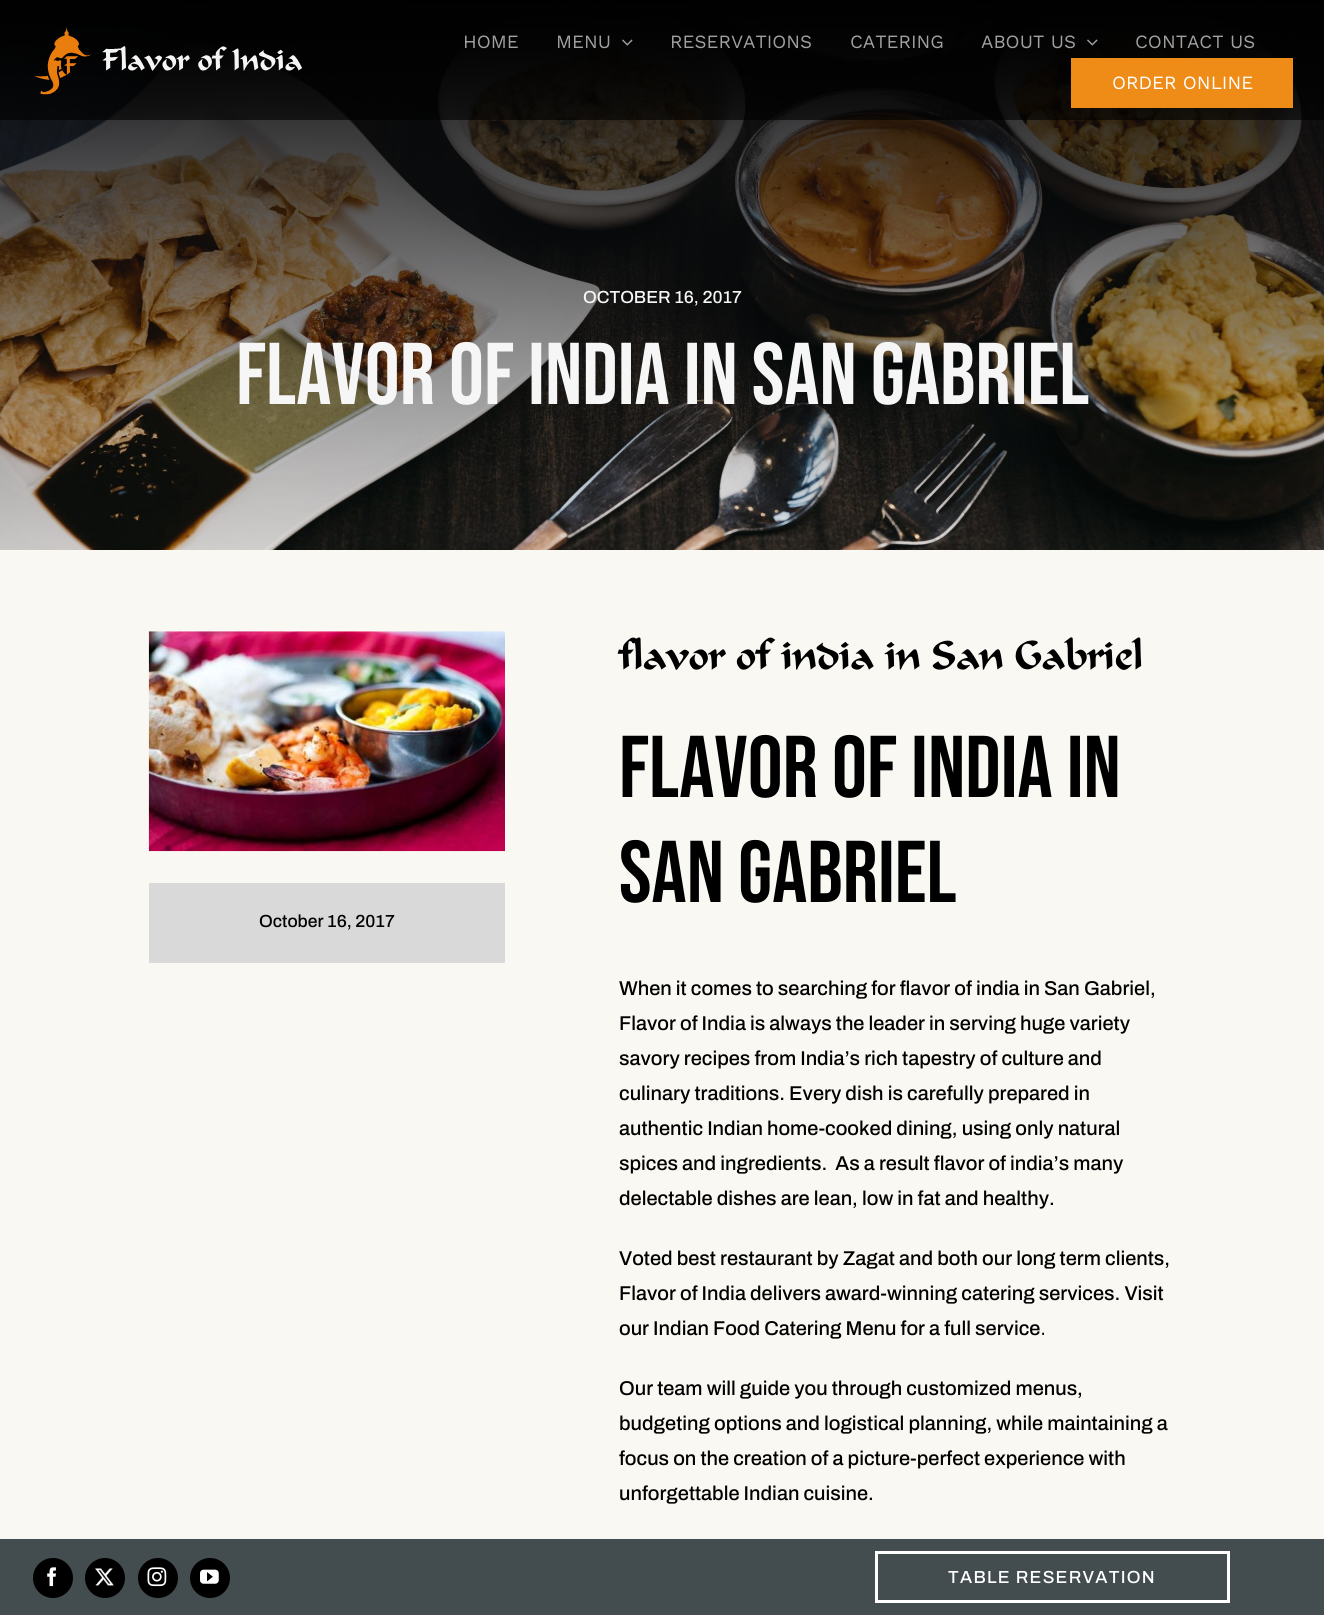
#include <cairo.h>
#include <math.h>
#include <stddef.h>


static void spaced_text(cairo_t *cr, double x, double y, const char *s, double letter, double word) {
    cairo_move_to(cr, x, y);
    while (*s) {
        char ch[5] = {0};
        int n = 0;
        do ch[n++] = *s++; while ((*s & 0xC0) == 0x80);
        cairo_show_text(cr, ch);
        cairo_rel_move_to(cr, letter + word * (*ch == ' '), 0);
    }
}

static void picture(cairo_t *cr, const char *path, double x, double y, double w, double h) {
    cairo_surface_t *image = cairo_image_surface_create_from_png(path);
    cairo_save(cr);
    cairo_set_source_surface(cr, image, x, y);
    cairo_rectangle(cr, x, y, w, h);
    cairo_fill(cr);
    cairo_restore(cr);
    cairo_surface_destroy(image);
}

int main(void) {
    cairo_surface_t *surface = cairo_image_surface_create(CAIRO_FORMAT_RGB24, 1324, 1615);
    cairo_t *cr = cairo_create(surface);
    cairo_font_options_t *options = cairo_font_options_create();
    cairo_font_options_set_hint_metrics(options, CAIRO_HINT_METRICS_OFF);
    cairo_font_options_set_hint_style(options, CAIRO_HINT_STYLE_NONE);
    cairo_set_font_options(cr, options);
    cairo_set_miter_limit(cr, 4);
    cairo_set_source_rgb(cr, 0.973, 0.969, 0.949);
    cairo_paint(cr);
    picture(cr, "img4.png", 0, 0, 1324, 550);
    picture(cr, "img1.png", 34, 25, 268, 70);
    cairo_select_font_face(cr, "Work Sans", CAIRO_FONT_SLANT_NORMAL, CAIRO_FONT_WEIGHT_NORMAL);
    cairo_set_font_size(cr, 18.75);
    cairo_set_source_rgb(cr, 0.631, 0.631, 0.631);
    cairo_move_to(cr, 463, 48);
    cairo_show_text(cr, "HOME");
    cairo_move_to(cr, 556, 48);
    cairo_show_text(cr, "MENU");
    picture(cr, "img2.png", 622, 39, 11, 7);
    cairo_move_to(cr, 670, 48);
    cairo_show_text(cr, "RESERVATIONS");
    cairo_move_to(cr, 850, 48);
    cairo_show_text(cr, "CATERING");
    cairo_move_to(cr, 981, 48);
    cairo_show_text(cr, "ABOUT US");
    picture(cr, "img3.png", 1087, 39, 11, 7);
    cairo_move_to(cr, 1135, 48);
    cairo_show_text(cr, "CONTACT US");
    cairo_set_source_rgb(cr, 0.937, 0.545, 0.09);
    cairo_rectangle(cr, 1071, 58, 222, 50);
    cairo_fill(cr);
    cairo_set_source_rgb(cr, 1, 1, 1);
    cairo_move_to(cr, 1112, 89);
    cairo_show_text(cr, "ORDER ONLINE");
    cairo_select_font_face(cr, "Archivo Medium", CAIRO_FONT_SLANT_NORMAL, CAIRO_FONT_WEIGHT_NORMAL);
    cairo_set_font_size(cr, 17.5);
    cairo_set_source_rgb(cr, 0.961, 0.961, 0.961);
    cairo_move_to(cr, 583, 303);
    cairo_show_text(cr, "OCTOBER 16, 2017");
    cairo_select_font_face(cr, "Bebas Neue", CAIRO_FONT_SLANT_NORMAL, CAIRO_FONT_WEIGHT_NORMAL);
    cairo_set_font_size(cr, 87.5);
    cairo_move_to(cr, 236, 404);
    cairo_show_text(cr, "flavor of india in San Gabriel");
    picture(cr, "img5.png", 148, 631, 357, 221);
    cairo_set_source_rgb(cr, 0.851, 0.851, 0.851);
    cairo_rectangle(cr, 149, 883, 356, 80);
    cairo_fill(cr);
    cairo_select_font_face(cr, "Archivo Medium", CAIRO_FONT_SLANT_NORMAL, CAIRO_FONT_WEIGHT_NORMAL);
    cairo_set_font_size(cr, 17.5);
    cairo_set_source_rgb(cr, 0, 0, 0);
    cairo_move_to(cr, 259, 927);
    cairo_show_text(cr, "October 16, 2017");
    cairo_select_font_face(cr, "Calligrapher", CAIRO_FONT_SLANT_NORMAL, CAIRO_FONT_WEIGHT_NORMAL);
    cairo_set_font_size(cr, 40);
    cairo_move_to(cr, 619, 669);
    cairo_show_text(cr, "flavor of india in San Gabriel");
    cairo_select_font_face(cr, "Bebas Neue", CAIRO_FONT_SLANT_NORMAL, CAIRO_FONT_WEIGHT_NORMAL);
    cairo_set_font_size(cr, 87.5);
    cairo_move_to(cr, 619, 797);
    cairo_show_text(cr, "flavor of india in");
    cairo_move_to(cr, 619, 902);
    cairo_show_text(cr, "San Gabriel");
    cairo_select_font_face(cr, "Archivo Medium", CAIRO_FONT_SLANT_NORMAL, CAIRO_FONT_WEIGHT_NORMAL);
    cairo_set_font_size(cr, 20);
    cairo_move_to(cr, 619, 995);
    cairo_show_text(cr, "When it comes to searching for flavor of india in San Gabriel,");
    cairo_move_to(cr, 619, 1030);
    cairo_show_text(cr, "Flavor of India is always the leader in serving huge variety");
    cairo_move_to(cr, 619, 1065);
    cairo_show_text(cr, "savory recipes from India’s rich tapestry of culture and");
    cairo_move_to(cr, 619, 1100);
    cairo_show_text(cr, "culinary traditions. Every dish is carefully prepared in");
    cairo_move_to(cr, 619, 1135);
    cairo_show_text(cr, "authentic Indian home-cooked dining, using only natural");
    cairo_move_to(cr, 619, 1170);
    cairo_show_text(cr, "spices and ingredients.  As a result flavor of india’s many");
    cairo_move_to(cr, 619, 1205);
    cairo_show_text(cr, "delectable dishes are lean, low in fat and healthy.");
    cairo_move_to(cr, 619, 1265);
    cairo_show_text(cr, "Voted best restaurant by Zagat and both our long term clients,");
    cairo_move_to(cr, 619, 1300);
    cairo_show_text(cr, "Flavor of India delivers award-winning catering services. Visit");
    cairo_move_to(cr, 619, 1335);
    cairo_show_text(cr, "our Indian Food Catering Menu for a full service.");
    cairo_move_to(cr, 619, 1395);
    cairo_show_text(cr, "Our team will guide you through customized menus,");
    cairo_move_to(cr, 619, 1430);
    cairo_show_text(cr, "budgeting options and logistical planning, while maintaining a");
    cairo_move_to(cr, 619, 1465);
    cairo_show_text(cr, "focus on the creation of a picture-perfect experience with");
    cairo_move_to(cr, 619, 1500);
    cairo_show_text(cr, "unforgettable Indian cuisine.");
    cairo_set_source_rgb(cr, 0.263, 0.298, 0.31);
    cairo_rectangle(cr, 0, 1539, 1324, 76);
    cairo_fill(cr);
    cairo_set_source_rgb(cr, 0, 0, 0);
    cairo_arc(cr, 53, 1578, 20, 0, 2 * M_PI);
    cairo_fill(cr);
    picture(cr, "img6.png", 47, 1567, 9, 20);
    cairo_arc(cr, 105, 1578, 20, 0, 2 * M_PI);
    cairo_fill(cr);
    picture(cr, "img7.png", 95, 1568, 19, 18);
    cairo_arc(cr, 158, 1578, 20, 0, 2 * M_PI);
    cairo_fill(cr);
    picture(cr, "img8.png", 147, 1567, 20, 20);
    cairo_arc(cr, 210, 1578, 20, 0, 2 * M_PI);
    cairo_fill(cr);
    picture(cr, "img9.png", 200, 1569, 19, 15);
    cairo_rectangle(cr, 876.5, 1552.5, 352, 49);
    cairo_set_source_rgb(cr, 1, 1, 1);
    cairo_set_line_width(cr, 3);
    cairo_stroke(cr);
    cairo_set_font_size(cr, 17.5);
    spaced_text(cr, 948, 1583, "TABLE RESERVATION", 1.25, 0);
    cairo_surface_write_to_png(surface, "page.png");
    cairo_font_options_destroy(options);
    cairo_destroy(cr);
    cairo_surface_destroy(surface);
    return 0;
}
